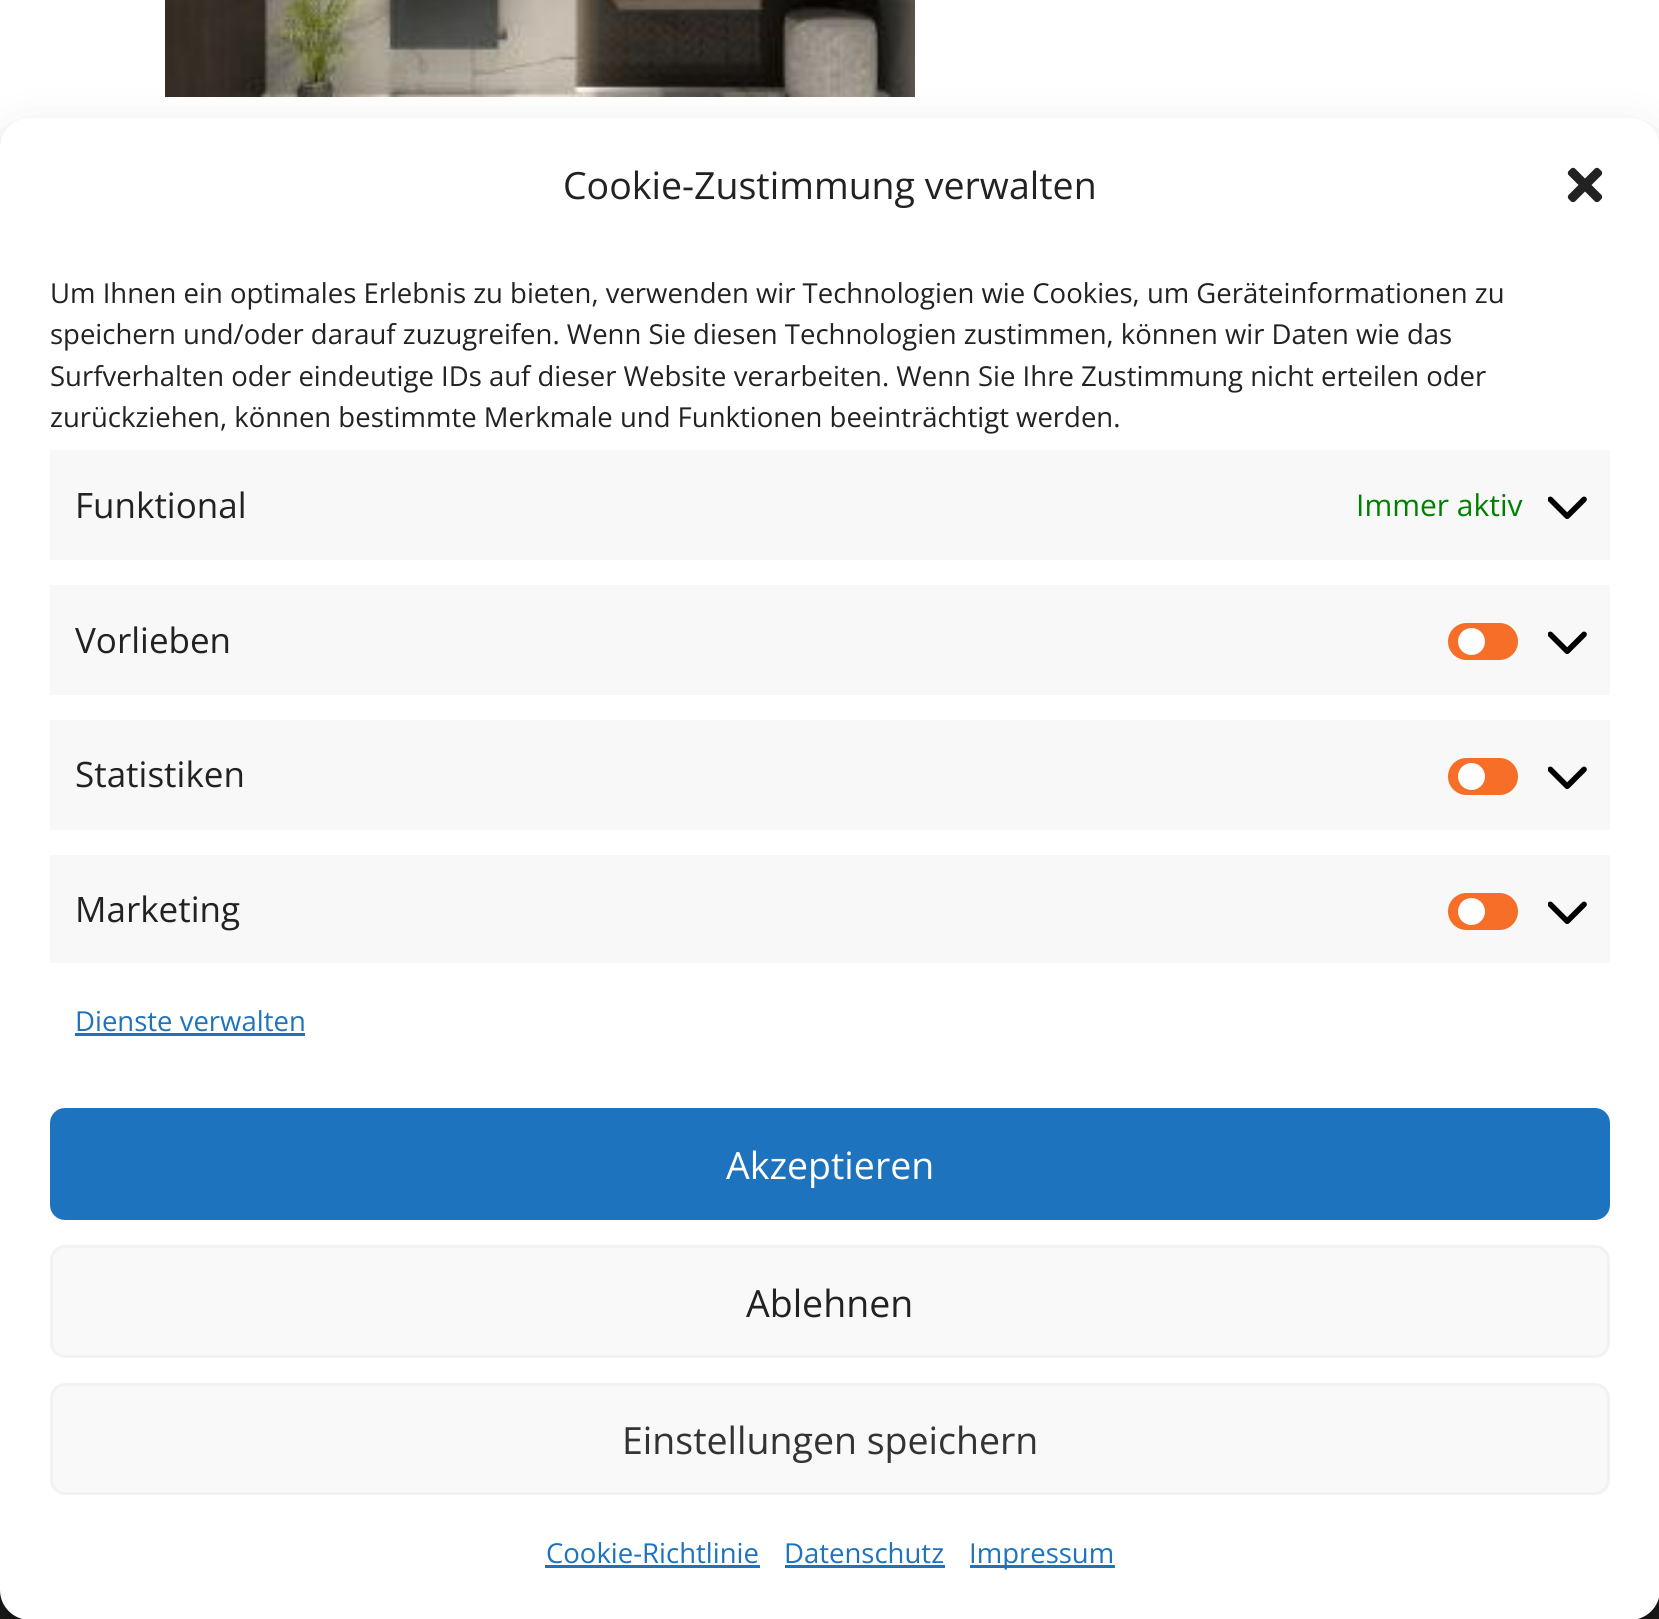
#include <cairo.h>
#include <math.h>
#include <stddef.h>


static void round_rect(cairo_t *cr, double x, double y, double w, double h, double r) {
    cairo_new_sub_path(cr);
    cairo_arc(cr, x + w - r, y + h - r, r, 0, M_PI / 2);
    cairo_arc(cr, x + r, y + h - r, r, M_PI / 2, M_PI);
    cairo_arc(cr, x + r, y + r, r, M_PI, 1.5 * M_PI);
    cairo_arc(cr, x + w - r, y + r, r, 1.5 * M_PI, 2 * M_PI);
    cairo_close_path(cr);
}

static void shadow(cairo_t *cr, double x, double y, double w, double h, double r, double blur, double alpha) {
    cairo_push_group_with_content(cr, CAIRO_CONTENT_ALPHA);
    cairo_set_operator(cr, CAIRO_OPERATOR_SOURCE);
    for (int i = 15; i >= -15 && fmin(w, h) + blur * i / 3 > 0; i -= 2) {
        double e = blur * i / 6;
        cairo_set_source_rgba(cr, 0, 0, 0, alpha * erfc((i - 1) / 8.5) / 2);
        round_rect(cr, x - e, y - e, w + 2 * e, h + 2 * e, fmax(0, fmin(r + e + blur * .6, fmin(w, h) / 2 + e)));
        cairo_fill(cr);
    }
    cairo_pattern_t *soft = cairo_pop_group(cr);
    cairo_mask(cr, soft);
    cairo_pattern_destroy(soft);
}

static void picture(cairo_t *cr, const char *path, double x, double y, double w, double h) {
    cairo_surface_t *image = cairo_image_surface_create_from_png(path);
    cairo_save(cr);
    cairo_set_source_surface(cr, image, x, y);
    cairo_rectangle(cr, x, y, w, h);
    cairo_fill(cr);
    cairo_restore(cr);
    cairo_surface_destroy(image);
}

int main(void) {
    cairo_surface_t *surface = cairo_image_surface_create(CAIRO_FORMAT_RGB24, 1659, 1619);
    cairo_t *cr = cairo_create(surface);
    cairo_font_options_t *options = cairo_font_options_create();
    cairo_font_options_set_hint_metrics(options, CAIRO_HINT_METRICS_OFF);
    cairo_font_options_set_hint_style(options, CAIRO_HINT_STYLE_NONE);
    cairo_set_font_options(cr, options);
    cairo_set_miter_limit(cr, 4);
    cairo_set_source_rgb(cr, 1, 1, 1);
    cairo_paint(cr);
    picture(cr, "img1.png", 165, 0, 750, 97);
    cairo_set_source_rgb(cr, 0.122, 0.106, 0.106);
    cairo_rectangle(cr, 0, 1590, 1659, 29);
    cairo_fill(cr);
    cairo_set_source_rgb(cr, 0, 0, 0);
    shadow(cr, 0, 133, 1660, 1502, 30, 7.5, 0.23);
    shadow(cr, 0, 143, 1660, 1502, 30, 25, 0.19);
    cairo_set_source_rgb(cr, 1, 1, 1);
    round_rect(cr, 0, 118, 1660, 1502, 30);
    cairo_fill(cr);
    cairo_select_font_face(cr, "Open Sans", CAIRO_FONT_SLANT_NORMAL, CAIRO_FONT_WEIGHT_NORMAL);
    cairo_set_font_size(cr, 37.5);
    cairo_set_source_rgb(cr, 0.133, 0.133, 0.133);
    cairo_move_to(cr, 563, 199);
    cairo_show_text(cr, "Cookie-Zustimmung verwalten");
    picture(cr, "img2.png", 1567, 167, 36, 36);
    cairo_set_font_size(cr, 27.5);
    cairo_move_to(cr, 50, 303);
    cairo_show_text(cr, "Um Ihnen ein optimales Erlebnis zu bieten, verwenden wir Technologien wie Cookies, um Geräteinformationen zu");
    cairo_move_to(cr, 50, 344);
    cairo_show_text(cr, "speichern und/oder darauf zuzugreifen. Wenn Sie diesen Technologien zustimmen, können wir Daten wie das");
    cairo_move_to(cr, 50, 386);
    cairo_show_text(cr, "Surfverhalten oder eindeutige IDs auf dieser Website verarbeiten. Wenn Sie Ihre Zustimmung nicht erteilen oder");
    cairo_move_to(cr, 50, 427);
    cairo_show_text(cr, "zurückziehen, können bestimmte Merkmale und Funktionen beeinträchtigt werden.");
    cairo_set_source_rgb(cr, 0.969, 0.969, 0.969);
    cairo_rectangle(cr, 50, 450, 1560, 110);
    cairo_fill(cr);
    cairo_set_font_size(cr, 35);
    cairo_set_source_rgb(cr, 0.133, 0.133, 0.133);
    cairo_move_to(cr, 75, 518);
    cairo_show_text(cr, "Funktional");
    cairo_set_font_size(cr, 30);
    cairo_set_source_rgb(cr, 0, 0.502, 0);
    cairo_move_to(cr, 1356, 516);
    cairo_show_text(cr, "Immer aktiv");
    picture(cr, "img3.png", 1548, 496, 39, 23);
    cairo_set_source_rgb(cr, 0.969, 0.969, 0.969);
    cairo_rectangle(cr, 50, 585, 1560, 110);
    cairo_fill(cr);
    cairo_set_font_size(cr, 35);
    cairo_set_source_rgb(cr, 0.133, 0.133, 0.133);
    cairo_move_to(cr, 75, 653);
    cairo_show_text(cr, "Vorlieben");
    cairo_set_source_rgb(cr, 0.961, 0.431, 0.157);
    round_rect(cr, 1448, 623, 70, 37, 18.5);
    cairo_fill(cr);
    cairo_set_source_rgb(cr, 1, 1, 1);
    cairo_arc(cr, 1471.5, 641.5, 13.5, 0, 2 * M_PI);
    cairo_fill(cr);
    picture(cr, "img3.png", 1548, 631, 39, 23);
    cairo_set_source_rgb(cr, 0.969, 0.969, 0.969);
    cairo_rectangle(cr, 50, 720, 1560, 110);
    cairo_fill(cr);
    cairo_set_source_rgb(cr, 0.133, 0.133, 0.133);
    cairo_move_to(cr, 75, 787);
    cairo_show_text(cr, "Statistiken");
    cairo_set_source_rgb(cr, 0.961, 0.431, 0.157);
    round_rect(cr, 1448, 758, 70, 37, 18.5);
    cairo_fill(cr);
    cairo_set_source_rgb(cr, 1, 1, 1);
    cairo_arc(cr, 1471.5, 776.5, 13.5, 0, 2 * M_PI);
    cairo_fill(cr);
    picture(cr, "img3.png", 1548, 766, 39, 23);
    cairo_set_source_rgb(cr, 0.969, 0.969, 0.969);
    cairo_rectangle(cr, 50, 855, 1560, 108);
    cairo_fill(cr);
    cairo_set_source_rgb(cr, 0.133, 0.133, 0.133);
    cairo_move_to(cr, 75, 922);
    cairo_show_text(cr, "Marketing");
    cairo_set_source_rgb(cr, 0.961, 0.431, 0.157);
    round_rect(cr, 1448, 893, 70, 37, 18.5);
    cairo_fill(cr);
    cairo_set_source_rgb(cr, 1, 1, 1);
    cairo_arc(cr, 1471.5, 911.5, 13.5, 0, 2 * M_PI);
    cairo_fill(cr);
    picture(cr, "img3.png", 1548, 901, 39, 23);
    cairo_set_font_size(cr, 27.5);
    cairo_set_source_rgb(cr, 0.118, 0.451, 0.745);
    cairo_move_to(cr, 75, 1031);
    cairo_show_text(cr, "Dienste verwalten");
    cairo_rectangle(cr, 75, 1033, 230, 3);
    cairo_fill(cr);
    round_rect(cr, 51.5, 1109.5, 1557, 109, 13.5);
    cairo_fill_preserve(cr);
    cairo_set_line_width(cr, 3);
    cairo_stroke(cr);
    cairo_set_font_size(cr, 37.5);
    cairo_set_source_rgb(cr, 1, 1, 1);
    cairo_move_to(cr, 726, 1179);
    cairo_show_text(cr, "Akzeptieren");
    cairo_set_source_rgb(cr, 0.976, 0.976, 0.976);
    round_rect(cr, 51.5, 1246.5, 1557, 110, 13.5);
    cairo_fill_preserve(cr);
    cairo_set_source_rgb(cr, 0.949, 0.949, 0.949);
    cairo_stroke(cr);
    cairo_set_source_rgb(cr, 0.133, 0.133, 0.133);
    cairo_move_to(cr, 746, 1317);
    cairo_show_text(cr, "Ablehnen");
    cairo_set_source_rgb(cr, 0.976, 0.976, 0.976);
    round_rect(cr, 51.5, 1384.5, 1557, 109, 13.5);
    cairo_fill_preserve(cr);
    cairo_set_source_rgb(cr, 0.949, 0.949, 0.949);
    cairo_stroke(cr);
    cairo_set_source_rgb(cr, 0.2, 0.2, 0.2);
    cairo_move_to(cr, 622, 1454);
    cairo_show_text(cr, "Einstellungen speichern");
    cairo_set_font_size(cr, 27.5);
    cairo_set_source_rgb(cr, 0.118, 0.451, 0.745);
    cairo_move_to(cr, 546, 1563);
    cairo_show_text(cr, "Cookie-Richtlinie");
    cairo_rectangle(cr, 545, 1565, 215, 3);
    cairo_fill(cr);
    cairo_move_to(cr, 784, 1563);
    cairo_show_text(cr, "Datenschutz");
    cairo_rectangle(cr, 785, 1565, 160, 3);
    cairo_fill(cr);
    cairo_rectangle(cr, 970, 1565, 145, 3);
    cairo_fill(cr);
    cairo_move_to(cr, 969, 1563);
    cairo_show_text(cr, "Impressum");
    cairo_surface_write_to_png(surface, "page.png");
    cairo_font_options_destroy(options);
    cairo_destroy(cr);
    cairo_surface_destroy(surface);
    return 0;
}
